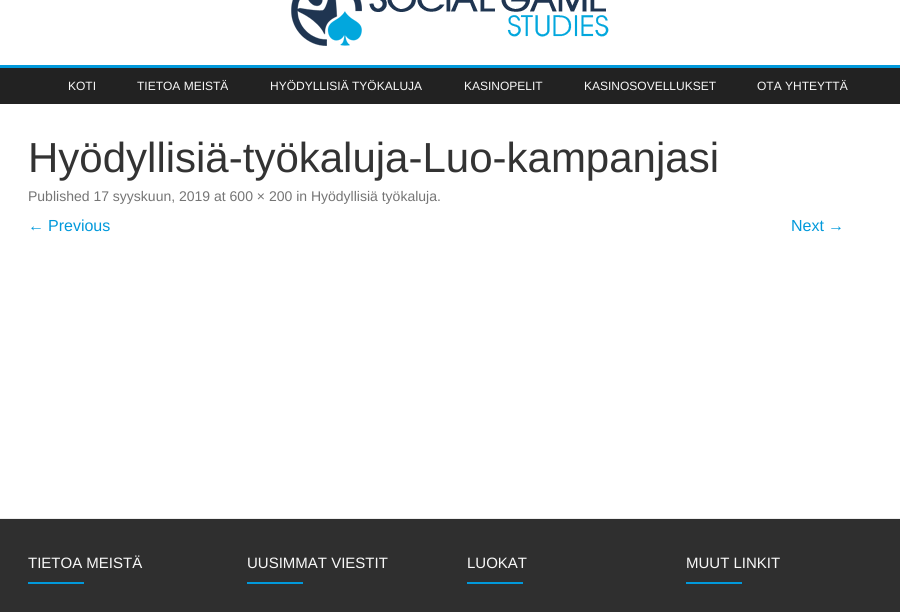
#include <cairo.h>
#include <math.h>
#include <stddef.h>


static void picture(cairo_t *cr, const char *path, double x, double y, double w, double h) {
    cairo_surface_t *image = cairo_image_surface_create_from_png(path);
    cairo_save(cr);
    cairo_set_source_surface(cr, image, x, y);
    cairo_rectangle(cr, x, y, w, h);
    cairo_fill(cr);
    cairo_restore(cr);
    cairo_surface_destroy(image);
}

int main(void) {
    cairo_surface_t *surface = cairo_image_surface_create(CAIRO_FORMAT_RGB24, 900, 612);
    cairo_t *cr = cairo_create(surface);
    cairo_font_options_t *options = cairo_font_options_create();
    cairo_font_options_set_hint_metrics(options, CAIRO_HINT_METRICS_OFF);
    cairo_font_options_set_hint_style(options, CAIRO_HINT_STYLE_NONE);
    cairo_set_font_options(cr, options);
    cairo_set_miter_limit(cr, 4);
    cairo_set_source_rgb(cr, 1, 1, 1);
    cairo_paint(cr);
    picture(cr, "img1.png", 291, 0, 318, 46);
    cairo_set_source_rgb(cr, 0.133, 0.133, 0.133);
    cairo_rectangle(cr, 0, 68, 900, 36);
    cairo_fill(cr);
    cairo_set_source_rgb(cr, 0.004, 0.6, 0.859);
    cairo_rectangle(cr, 0, 65, 900, 3);
    cairo_fill(cr);
    cairo_select_font_face(cr, "Arimo", CAIRO_FONT_SLANT_NORMAL, CAIRO_FONT_WEIGHT_NORMAL);
    cairo_set_font_size(cr, 12);
    cairo_set_source_rgb(cr, 0.969, 0.969, 0.969);
    cairo_move_to(cr, 68, 90);
    cairo_show_text(cr, "KOTI");
    cairo_move_to(cr, 137, 90);
    cairo_show_text(cr, "TIETOA MEISTÄ");
    cairo_move_to(cr, 270, 90);
    cairo_show_text(cr, "HYÖDYLLISIÄ TYÖKALUJA");
    cairo_move_to(cr, 464, 90);
    cairo_show_text(cr, "KASINOPELIT");
    cairo_move_to(cr, 584, 90);
    cairo_show_text(cr, "KASINOSOVELLUKSET");
    cairo_move_to(cr, 757, 90);
    cairo_show_text(cr, "OTA YHTEYTTÄ");
    cairo_set_font_size(cr, 42);
    cairo_set_source_rgb(cr, 0.2, 0.2, 0.2);
    cairo_move_to(cr, 28, 172);
    cairo_show_text(cr, "Hyödyllisiä-työkaluja-Luo-kampanjasi");
    cairo_set_font_size(cr, 14);
    cairo_set_source_rgb(cr, 0.459, 0.459, 0.459);
    cairo_move_to(cr, 28, 201);
    cairo_show_text(cr, "Published 17 syyskuun, 2019 at 600 × 200 in Hyödyllisiä työkaluja.");
    cairo_select_font_face(cr, "Liberation Sans", CAIRO_FONT_SLANT_NORMAL, CAIRO_FONT_WEIGHT_NORMAL);
    cairo_set_font_size(cr, 16);
    cairo_set_source_rgb(cr, 0.004, 0.6, 0.859);
    cairo_move_to(cr, 28, 231);
    cairo_show_text(cr, "←");
    cairo_select_font_face(cr, "Arimo", CAIRO_FONT_SLANT_NORMAL, CAIRO_FONT_WEIGHT_NORMAL);
    cairo_move_to(cr, 48, 231);
    cairo_show_text(cr, "Previous");
    cairo_move_to(cr, 791, 231);
    cairo_show_text(cr, "Next");
    cairo_select_font_face(cr, "Liberation Sans", CAIRO_FONT_SLANT_NORMAL, CAIRO_FONT_WEIGHT_NORMAL);
    cairo_move_to(cr, 828, 231);
    cairo_show_text(cr, "→");
    cairo_set_source_rgb(cr, 0.929, 0.929, 0.929);
    cairo_rectangle(cr, 0, 518, 900, 1);
    cairo_fill(cr);
    cairo_set_source_rgb(cr, 0.184, 0.184, 0.184);
    cairo_rectangle(cr, 0, 519, 900, 93);
    cairo_fill(cr);
    cairo_select_font_face(cr, "Arimo", CAIRO_FONT_SLANT_NORMAL, CAIRO_FONT_WEIGHT_NORMAL);
    cairo_set_font_size(cr, 15);
    cairo_set_source_rgb(cr, 0.969, 0.969, 0.969);
    cairo_move_to(cr, 28, 568);
    cairo_show_text(cr, "TIETOA MEISTÄ");
    cairo_set_source_rgb(cr, 0.004, 0.6, 0.859);
    cairo_rectangle(cr, 28, 582, 56, 2);
    cairo_fill(cr);
    cairo_set_source_rgb(cr, 0.969, 0.969, 0.969);
    cairo_move_to(cr, 247, 568);
    cairo_show_text(cr, "UUSIMMAT VIESTIT");
    cairo_set_source_rgb(cr, 0.004, 0.6, 0.859);
    cairo_rectangle(cr, 247, 582, 56, 2);
    cairo_fill(cr);
    cairo_set_source_rgb(cr, 0.969, 0.969, 0.969);
    cairo_move_to(cr, 467, 568);
    cairo_show_text(cr, "LUOKAT");
    cairo_set_source_rgb(cr, 0.004, 0.6, 0.859);
    cairo_rectangle(cr, 467, 582, 56, 2);
    cairo_fill(cr);
    cairo_set_source_rgb(cr, 0.969, 0.969, 0.969);
    cairo_move_to(cr, 686, 568);
    cairo_show_text(cr, "MUUT LINKIT");
    cairo_set_source_rgb(cr, 0.004, 0.6, 0.859);
    cairo_rectangle(cr, 686, 582, 56, 2);
    cairo_fill(cr);
    cairo_surface_write_to_png(surface, "page.png");
    cairo_font_options_destroy(options);
    cairo_destroy(cr);
    cairo_surface_destroy(surface);
    return 0;
}
